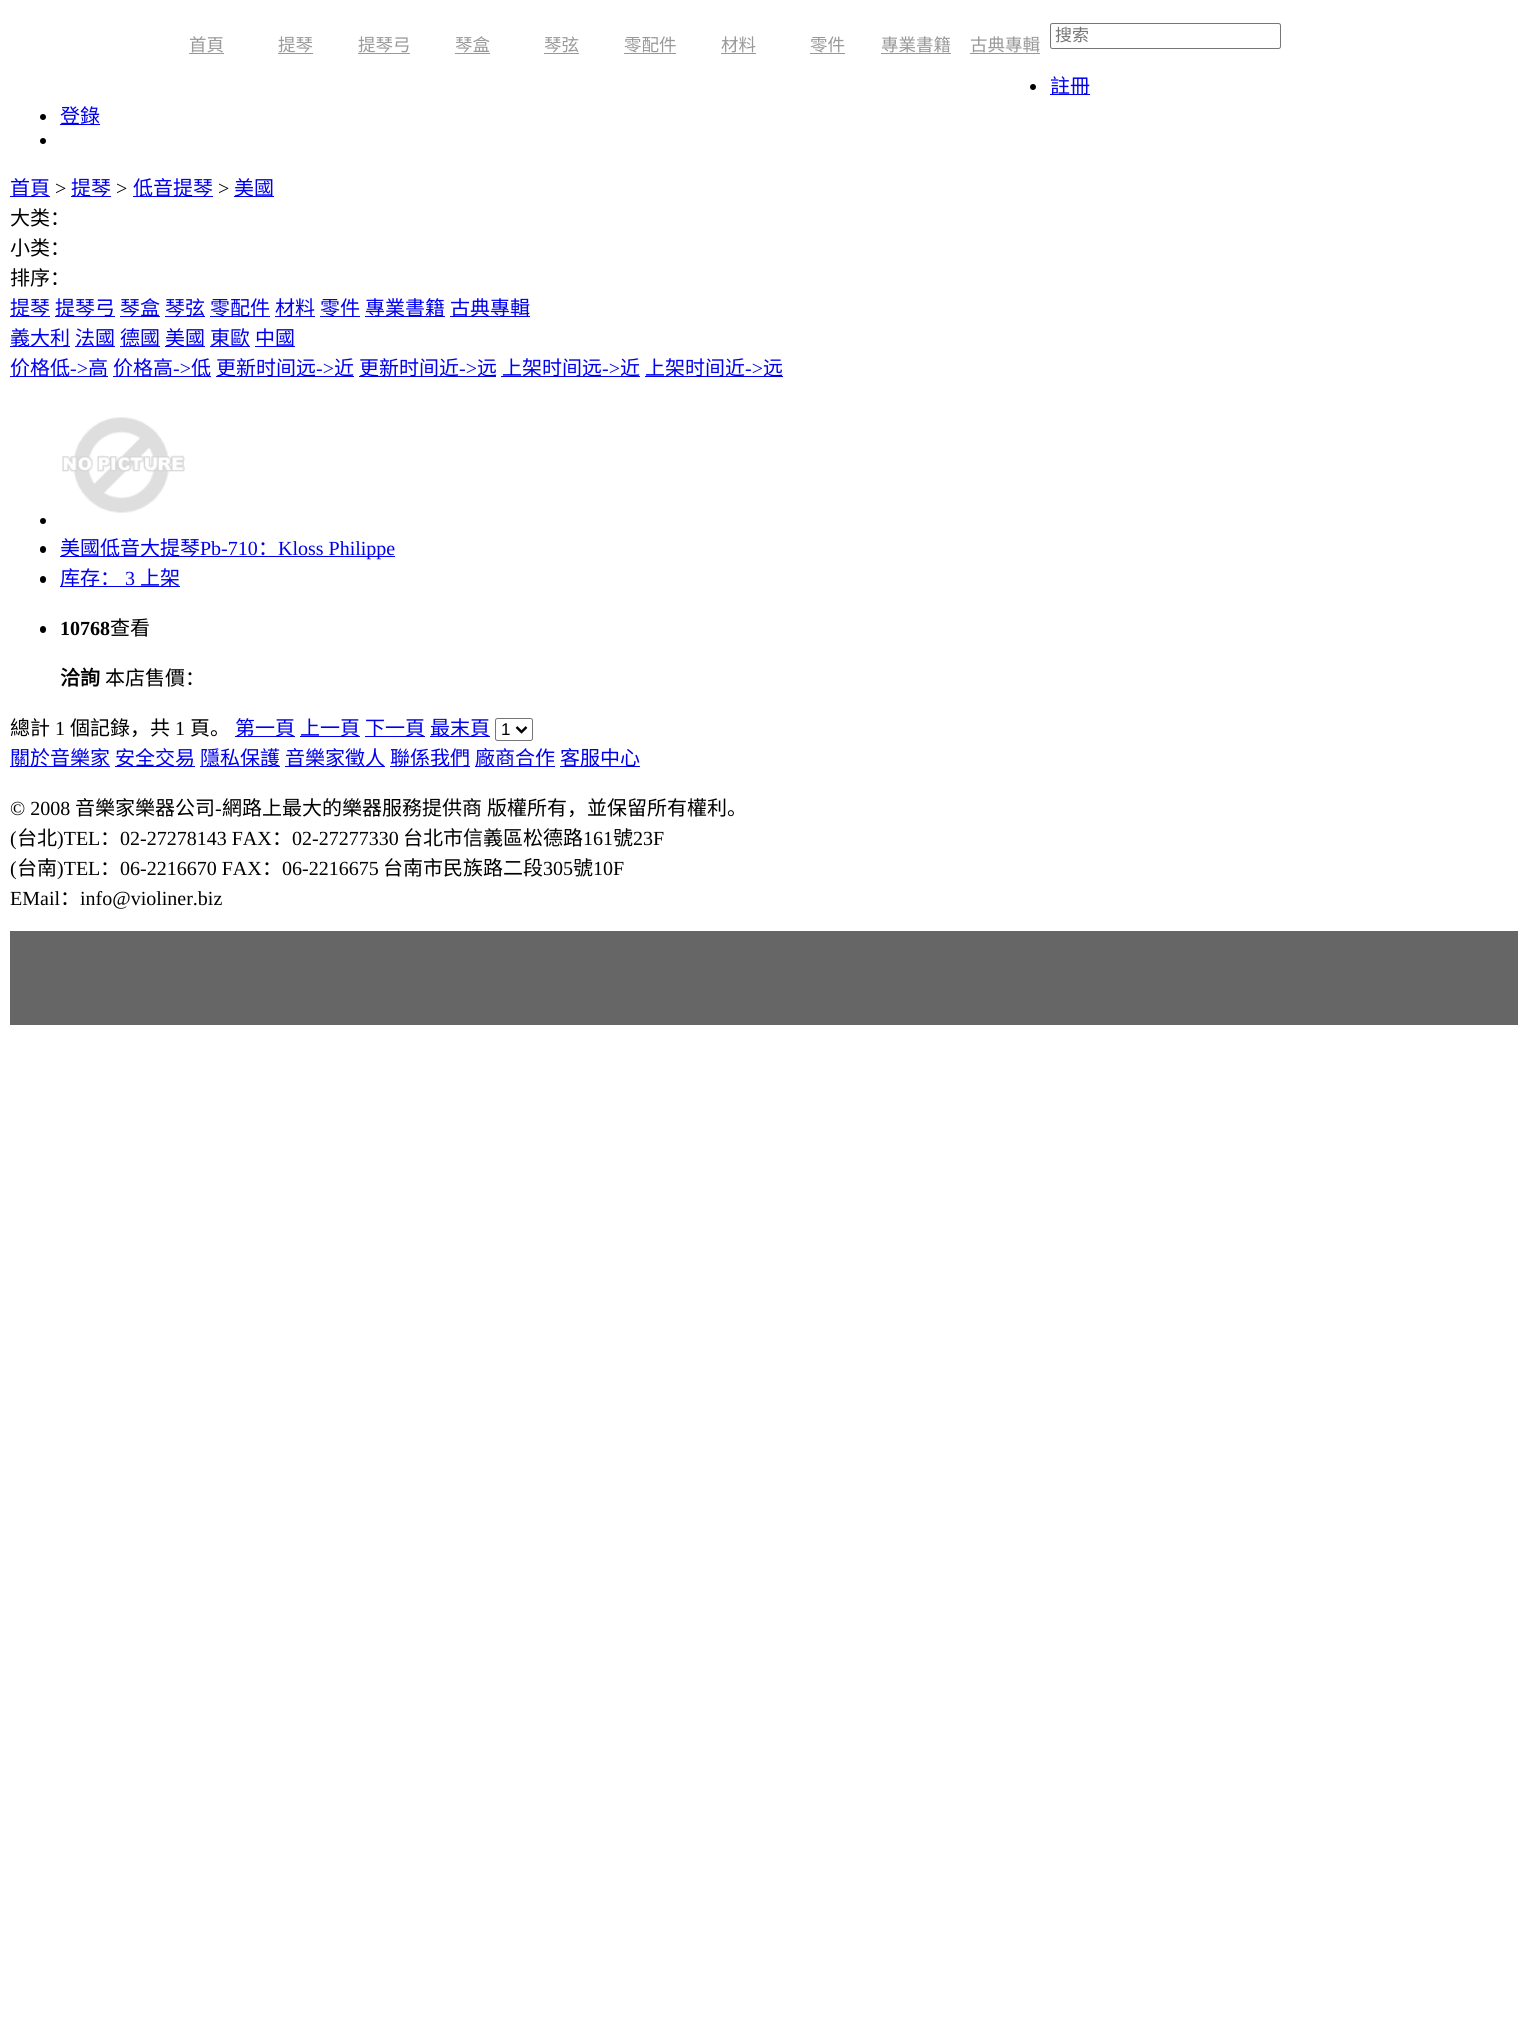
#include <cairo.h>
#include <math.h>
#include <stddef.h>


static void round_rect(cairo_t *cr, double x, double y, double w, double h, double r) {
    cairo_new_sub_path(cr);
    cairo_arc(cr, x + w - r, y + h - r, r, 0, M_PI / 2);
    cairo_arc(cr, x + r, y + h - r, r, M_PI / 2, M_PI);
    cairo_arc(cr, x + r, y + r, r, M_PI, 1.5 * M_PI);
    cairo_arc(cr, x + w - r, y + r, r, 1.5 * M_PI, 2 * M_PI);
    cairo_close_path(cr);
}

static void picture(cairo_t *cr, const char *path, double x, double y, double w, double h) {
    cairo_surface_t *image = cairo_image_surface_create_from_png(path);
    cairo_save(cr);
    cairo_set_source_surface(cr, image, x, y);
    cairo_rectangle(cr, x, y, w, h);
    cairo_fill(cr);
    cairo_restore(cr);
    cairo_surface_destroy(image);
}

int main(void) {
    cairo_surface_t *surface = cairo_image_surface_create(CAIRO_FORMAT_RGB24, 1527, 2031);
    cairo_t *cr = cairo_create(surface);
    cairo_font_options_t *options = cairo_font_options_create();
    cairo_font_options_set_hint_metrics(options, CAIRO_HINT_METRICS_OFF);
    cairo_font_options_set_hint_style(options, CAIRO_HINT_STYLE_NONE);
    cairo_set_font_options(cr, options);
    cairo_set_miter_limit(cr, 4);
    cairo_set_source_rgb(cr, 1, 1, 1);
    cairo_paint(cr);
    cairo_select_font_face(cr, "Noto Sans CJK SC", CAIRO_FONT_SLANT_NORMAL, CAIRO_FONT_WEIGHT_NORMAL);
    cairo_set_font_size(cr, 17.5);
    cairo_set_source_rgb(cr, 0.6, 0.6, 0.6);
    cairo_move_to(cr, 189, 51);
    cairo_show_text(cr, "首頁");
    cairo_rectangle(cr, 189, 53, 35, 1);
    cairo_fill(cr);
    cairo_move_to(cr, 278, 51);
    cairo_show_text(cr, "提琴");
    cairo_rectangle(cr, 278, 53, 35, 1);
    cairo_fill(cr);
    cairo_move_to(cr, 358, 51);
    cairo_show_text(cr, "提琴弓");
    cairo_rectangle(cr, 358, 53, 52, 1);
    cairo_fill(cr);
    cairo_move_to(cr, 455, 51);
    cairo_show_text(cr, "琴盒");
    cairo_rectangle(cr, 455, 53, 35, 1);
    cairo_fill(cr);
    cairo_move_to(cr, 544, 51);
    cairo_show_text(cr, "琴弦");
    cairo_rectangle(cr, 544, 53, 35, 1);
    cairo_fill(cr);
    cairo_move_to(cr, 624, 51);
    cairo_show_text(cr, "零配件");
    cairo_rectangle(cr, 624, 53, 52, 1);
    cairo_fill(cr);
    cairo_move_to(cr, 721, 51);
    cairo_show_text(cr, "材料");
    cairo_rectangle(cr, 721, 53, 35, 1);
    cairo_fill(cr);
    cairo_move_to(cr, 810, 51);
    cairo_show_text(cr, "零件");
    cairo_rectangle(cr, 810, 53, 35, 1);
    cairo_fill(cr);
    cairo_move_to(cr, 881, 51);
    cairo_show_text(cr, "專業書籍");
    cairo_rectangle(cr, 881, 53, 70, 1);
    cairo_fill(cr);
    cairo_move_to(cr, 970, 51);
    cairo_show_text(cr, "古典專輯");
    cairo_rectangle(cr, 970, 53, 70, 1);
    cairo_fill(cr);
    round_rect(cr, 1050.5, 23.5, 230, 25, 2);
    cairo_set_source_rgb(cr, 0.463, 0.463, 0.463);
    cairo_set_line_width(cr, 1);
    cairo_stroke(cr);
    cairo_set_font_size(cr, 17);
    cairo_set_source_rgb(cr, 0.459, 0.459, 0.459);
    cairo_move_to(cr, 1055, 41);
    cairo_show_text(cr, "搜索");
    cairo_set_source_rgb(cr, 0, 0, 0);
    cairo_new_path(cr);
    cairo_arc(cr, 1033, 87, 3, 0, 2 * M_PI);
    cairo_fill(cr);
    cairo_set_source_rgb(cr, 0, 0, 0.933);
    cairo_rectangle(cr, 1050, 94, 40, 1);
    cairo_fill(cr);
    cairo_set_font_size(cr, 20);
    cairo_move_to(cr, 1050, 93);
    cairo_show_text(cr, "註冊");
    cairo_set_source_rgb(cr, 0, 0, 0);
    cairo_new_path(cr);
    cairo_arc(cr, 43, 117, 3, 0, 2 * M_PI);
    cairo_fill(cr);
    cairo_set_source_rgb(cr, 0, 0, 0.933);
    cairo_rectangle(cr, 60, 124, 40, 1);
    cairo_fill(cr);
    cairo_move_to(cr, 60, 123);
    cairo_show_text(cr, "登錄");
    cairo_set_source_rgb(cr, 0, 0, 0);
    cairo_new_path(cr);
    cairo_arc(cr, 43, 141, 3, 0, 2 * M_PI);
    cairo_fill(cr);
    cairo_set_source_rgb(cr, 0, 0, 0.933);
    cairo_rectangle(cr, 10, 196, 40, 1);
    cairo_fill(cr);
    cairo_move_to(cr, 10, 195);
    cairo_show_text(cr, "首頁");
    cairo_select_font_face(cr, "Liberation Serif", CAIRO_FONT_SLANT_NORMAL, CAIRO_FONT_WEIGHT_NORMAL);
    cairo_set_source_rgb(cr, 0, 0, 0);
    cairo_move_to(cr, 55, 195);
    cairo_show_text(cr, ">");
    cairo_set_source_rgb(cr, 0, 0, 0.933);
    cairo_rectangle(cr, 71, 196, 40, 1);
    cairo_fill(cr);
    cairo_select_font_face(cr, "Noto Sans CJK SC", CAIRO_FONT_SLANT_NORMAL, CAIRO_FONT_WEIGHT_NORMAL);
    cairo_move_to(cr, 71, 195);
    cairo_show_text(cr, "提琴");
    cairo_select_font_face(cr, "Liberation Serif", CAIRO_FONT_SLANT_NORMAL, CAIRO_FONT_WEIGHT_NORMAL);
    cairo_set_source_rgb(cr, 0, 0, 0);
    cairo_move_to(cr, 116, 195);
    cairo_show_text(cr, ">");
    cairo_set_source_rgb(cr, 0, 0, 0.933);
    cairo_rectangle(cr, 133, 196, 80, 1);
    cairo_fill(cr);
    cairo_select_font_face(cr, "Noto Sans CJK SC", CAIRO_FONT_SLANT_NORMAL, CAIRO_FONT_WEIGHT_NORMAL);
    cairo_move_to(cr, 133, 195);
    cairo_show_text(cr, "低音提琴");
    cairo_select_font_face(cr, "Liberation Serif", CAIRO_FONT_SLANT_NORMAL, CAIRO_FONT_WEIGHT_NORMAL);
    cairo_set_source_rgb(cr, 0, 0, 0);
    cairo_move_to(cr, 218, 195);
    cairo_show_text(cr, ">");
    cairo_set_source_rgb(cr, 0, 0, 0.933);
    cairo_rectangle(cr, 234, 196, 40, 1);
    cairo_fill(cr);
    cairo_select_font_face(cr, "Noto Sans CJK SC", CAIRO_FONT_SLANT_NORMAL, CAIRO_FONT_WEIGHT_NORMAL);
    cairo_move_to(cr, 234, 195);
    cairo_show_text(cr, "美國");
    cairo_set_source_rgb(cr, 0, 0, 0);
    cairo_move_to(cr, 10, 225);
    cairo_show_text(cr, "大类：");
    cairo_move_to(cr, 10, 255);
    cairo_show_text(cr, "小类：");
    cairo_move_to(cr, 10, 285);
    cairo_show_text(cr, "排序：");
    cairo_set_source_rgb(cr, 0, 0, 0.933);
    cairo_rectangle(cr, 10, 316, 40, 1);
    cairo_fill(cr);
    cairo_move_to(cr, 10, 315);
    cairo_show_text(cr, "提琴");
    cairo_rectangle(cr, 55, 316, 60, 1);
    cairo_fill(cr);
    cairo_move_to(cr, 55, 315);
    cairo_show_text(cr, "提琴弓");
    cairo_rectangle(cr, 120, 316, 40, 1);
    cairo_fill(cr);
    cairo_move_to(cr, 120, 315);
    cairo_show_text(cr, "琴盒");
    cairo_rectangle(cr, 165, 316, 40, 1);
    cairo_fill(cr);
    cairo_move_to(cr, 165, 315);
    cairo_show_text(cr, "琴弦");
    cairo_rectangle(cr, 210, 316, 60, 1);
    cairo_fill(cr);
    cairo_move_to(cr, 210, 315);
    cairo_show_text(cr, "零配件");
    cairo_rectangle(cr, 275, 316, 40, 1);
    cairo_fill(cr);
    cairo_move_to(cr, 275, 315);
    cairo_show_text(cr, "材料");
    cairo_rectangle(cr, 320, 316, 40, 1);
    cairo_fill(cr);
    cairo_move_to(cr, 320, 315);
    cairo_show_text(cr, "零件");
    cairo_rectangle(cr, 365, 316, 80, 1);
    cairo_fill(cr);
    cairo_move_to(cr, 365, 315);
    cairo_show_text(cr, "專業書籍");
    cairo_rectangle(cr, 450, 316, 80, 1);
    cairo_fill(cr);
    cairo_move_to(cr, 450, 315);
    cairo_show_text(cr, "古典專輯");
    cairo_rectangle(cr, 10, 346, 60, 1);
    cairo_fill(cr);
    cairo_move_to(cr, 10, 345);
    cairo_show_text(cr, "義大利");
    cairo_rectangle(cr, 75, 346, 40, 1);
    cairo_fill(cr);
    cairo_move_to(cr, 75, 345);
    cairo_show_text(cr, "法國");
    cairo_rectangle(cr, 120, 346, 40, 1);
    cairo_fill(cr);
    cairo_move_to(cr, 120, 345);
    cairo_show_text(cr, "德國");
    cairo_rectangle(cr, 165, 346, 40, 1);
    cairo_fill(cr);
    cairo_move_to(cr, 165, 345);
    cairo_show_text(cr, "美國");
    cairo_rectangle(cr, 210, 346, 40, 1);
    cairo_fill(cr);
    cairo_move_to(cr, 210, 345);
    cairo_show_text(cr, "東歐");
    cairo_rectangle(cr, 255, 346, 40, 1);
    cairo_fill(cr);
    cairo_move_to(cr, 255, 345);
    cairo_show_text(cr, "中國");
    cairo_rectangle(cr, 10, 376, 98, 1);
    cairo_fill(cr);
    cairo_move_to(cr, 10, 375);
    cairo_show_text(cr, "价格低");
    cairo_select_font_face(cr, "Liberation Serif", CAIRO_FONT_SLANT_NORMAL, CAIRO_FONT_WEIGHT_NORMAL);
    cairo_move_to(cr, 70, 375);
    cairo_show_text(cr, "->");
    cairo_select_font_face(cr, "Noto Sans CJK SC", CAIRO_FONT_SLANT_NORMAL, CAIRO_FONT_WEIGHT_NORMAL);
    cairo_move_to(cr, 88, 375);
    cairo_show_text(cr, "高");
    cairo_rectangle(cr, 113, 376, 98, 1);
    cairo_fill(cr);
    cairo_move_to(cr, 113, 375);
    cairo_show_text(cr, "价格高");
    cairo_select_font_face(cr, "Liberation Serif", CAIRO_FONT_SLANT_NORMAL, CAIRO_FONT_WEIGHT_NORMAL);
    cairo_move_to(cr, 173, 375);
    cairo_show_text(cr, "->");
    cairo_select_font_face(cr, "Noto Sans CJK SC", CAIRO_FONT_SLANT_NORMAL, CAIRO_FONT_WEIGHT_NORMAL);
    cairo_move_to(cr, 191, 375);
    cairo_show_text(cr, "低");
    cairo_rectangle(cr, 216, 376, 138, 1);
    cairo_fill(cr);
    cairo_move_to(cr, 216, 375);
    cairo_show_text(cr, "更新时间远");
    cairo_select_font_face(cr, "Liberation Serif", CAIRO_FONT_SLANT_NORMAL, CAIRO_FONT_WEIGHT_NORMAL);
    cairo_move_to(cr, 316, 375);
    cairo_show_text(cr, "->");
    cairo_select_font_face(cr, "Noto Sans CJK SC", CAIRO_FONT_SLANT_NORMAL, CAIRO_FONT_WEIGHT_NORMAL);
    cairo_move_to(cr, 334, 375);
    cairo_show_text(cr, "近");
    cairo_rectangle(cr, 359, 376, 137, 1);
    cairo_fill(cr);
    cairo_move_to(cr, 359, 375);
    cairo_show_text(cr, "更新时间近");
    cairo_select_font_face(cr, "Liberation Serif", CAIRO_FONT_SLANT_NORMAL, CAIRO_FONT_WEIGHT_NORMAL);
    cairo_move_to(cr, 459, 375);
    cairo_show_text(cr, "->");
    cairo_select_font_face(cr, "Noto Sans CJK SC", CAIRO_FONT_SLANT_NORMAL, CAIRO_FONT_WEIGHT_NORMAL);
    cairo_move_to(cr, 477, 375);
    cairo_show_text(cr, "远");
    cairo_rectangle(cr, 501, 376, 139, 1);
    cairo_fill(cr);
    cairo_move_to(cr, 502, 375);
    cairo_show_text(cr, "上架时间远");
    cairo_select_font_face(cr, "Liberation Serif", CAIRO_FONT_SLANT_NORMAL, CAIRO_FONT_WEIGHT_NORMAL);
    cairo_move_to(cr, 602, 375);
    cairo_show_text(cr, "->");
    cairo_select_font_face(cr, "Noto Sans CJK SC", CAIRO_FONT_SLANT_NORMAL, CAIRO_FONT_WEIGHT_NORMAL);
    cairo_move_to(cr, 620, 375);
    cairo_show_text(cr, "近");
    cairo_rectangle(cr, 645, 376, 138, 1);
    cairo_fill(cr);
    cairo_move_to(cr, 645, 375);
    cairo_show_text(cr, "上架时间近");
    cairo_select_font_face(cr, "Liberation Serif", CAIRO_FONT_SLANT_NORMAL, CAIRO_FONT_WEIGHT_NORMAL);
    cairo_move_to(cr, 745, 375);
    cairo_show_text(cr, "->");
    cairo_select_font_face(cr, "Noto Sans CJK SC", CAIRO_FONT_SLANT_NORMAL, CAIRO_FONT_WEIGHT_NORMAL);
    cairo_move_to(cr, 763, 375);
    cairo_show_text(cr, "远");
    picture(cr, "img1.png", 62, 417, 123, 96);
    cairo_set_source_rgb(cr, 0, 0, 0);
    cairo_arc(cr, 43, 521, 3, 0, 2 * M_PI);
    cairo_fill(cr);
    round_rect(cr, 40, 546, 6, 7, 3);
    cairo_fill(cr);
    cairo_set_source_rgb(cr, 0, 0, 0.933);
    cairo_rectangle(cr, 60, 556, 335, 1);
    cairo_fill(cr);
    cairo_move_to(cr, 60, 555);
    cairo_show_text(cr, "美國低音大提琴");
    cairo_select_font_face(cr, "Liberation Serif", CAIRO_FONT_SLANT_NORMAL, CAIRO_FONT_WEIGHT_NORMAL);
    cairo_move_to(cr, 200, 555);
    cairo_show_text(cr, "Pb-710");
    cairo_select_font_face(cr, "Noto Sans CJK SC", CAIRO_FONT_SLANT_NORMAL, CAIRO_FONT_WEIGHT_NORMAL);
    cairo_move_to(cr, 258, 555);
    cairo_show_text(cr, "：");
    cairo_select_font_face(cr, "Liberation Serif", CAIRO_FONT_SLANT_NORMAL, CAIRO_FONT_WEIGHT_NORMAL);
    cairo_move_to(cr, 278, 555);
    cairo_show_text(cr, "Kloss Philippe");
    cairo_set_source_rgb(cr, 0, 0, 0);
    round_rect(cr, 40, 576, 6, 7, 3);
    cairo_fill(cr);
    cairo_set_source_rgb(cr, 0, 0, 0.933);
    cairo_rectangle(cr, 60, 586, 120, 1);
    cairo_fill(cr);
    cairo_select_font_face(cr, "Noto Sans CJK SC", CAIRO_FONT_SLANT_NORMAL, CAIRO_FONT_WEIGHT_NORMAL);
    cairo_move_to(cr, 60, 585);
    cairo_show_text(cr, "库存：");
    cairo_select_font_face(cr, "Liberation Serif", CAIRO_FONT_SLANT_NORMAL, CAIRO_FONT_WEIGHT_NORMAL);
    cairo_move_to(cr, 125, 585);
    cairo_show_text(cr, "3");
    cairo_select_font_face(cr, "Noto Sans CJK SC", CAIRO_FONT_SLANT_NORMAL, CAIRO_FONT_WEIGHT_NORMAL);
    cairo_move_to(cr, 140, 585);
    cairo_show_text(cr, "上架");
    cairo_set_source_rgb(cr, 0, 0, 0);
    round_rect(cr, 40, 626, 6, 7, 3);
    cairo_fill(cr);
    cairo_select_font_face(cr, "Liberation Serif", CAIRO_FONT_SLANT_NORMAL, CAIRO_FONT_WEIGHT_BOLD);
    cairo_move_to(cr, 60, 635);
    cairo_show_text(cr, "10768");
    cairo_select_font_face(cr, "Noto Sans CJK SC", CAIRO_FONT_SLANT_NORMAL, CAIRO_FONT_WEIGHT_NORMAL);
    cairo_move_to(cr, 110, 635);
    cairo_show_text(cr, "查看");
    cairo_select_font_face(cr, "Noto Sans CJK SC", CAIRO_FONT_SLANT_NORMAL, CAIRO_FONT_WEIGHT_BOLD);
    cairo_move_to(cr, 60, 685);
    cairo_show_text(cr, "洽詢");
    cairo_select_font_face(cr, "Noto Sans CJK SC", CAIRO_FONT_SLANT_NORMAL, CAIRO_FONT_WEIGHT_NORMAL);
    cairo_move_to(cr, 105, 685);
    cairo_show_text(cr, "本店售價：");
    cairo_move_to(cr, 10, 735);
    cairo_show_text(cr, "總計");
    cairo_select_font_face(cr, "Liberation Serif", CAIRO_FONT_SLANT_NORMAL, CAIRO_FONT_WEIGHT_NORMAL);
    cairo_move_to(cr, 55, 735);
    cairo_show_text(cr, "1");
    cairo_select_font_face(cr, "Noto Sans CJK SC", CAIRO_FONT_SLANT_NORMAL, CAIRO_FONT_WEIGHT_NORMAL);
    cairo_move_to(cr, 70, 735);
    cairo_show_text(cr, "個記錄，共");
    cairo_select_font_face(cr, "Liberation Serif", CAIRO_FONT_SLANT_NORMAL, CAIRO_FONT_WEIGHT_NORMAL);
    cairo_move_to(cr, 175, 735);
    cairo_show_text(cr, "1");
    cairo_select_font_face(cr, "Noto Sans CJK SC", CAIRO_FONT_SLANT_NORMAL, CAIRO_FONT_WEIGHT_NORMAL);
    cairo_move_to(cr, 190, 735);
    cairo_show_text(cr, "頁。");
    cairo_set_source_rgb(cr, 0, 0, 0.933);
    cairo_rectangle(cr, 235, 736, 60, 1);
    cairo_fill(cr);
    cairo_move_to(cr, 235, 735);
    cairo_show_text(cr, "第一頁");
    cairo_rectangle(cr, 300, 736, 60, 1);
    cairo_fill(cr);
    cairo_move_to(cr, 300, 735);
    cairo_show_text(cr, "上一頁");
    cairo_rectangle(cr, 365, 736, 60, 1);
    cairo_fill(cr);
    cairo_move_to(cr, 365, 735);
    cairo_show_text(cr, "下一頁");
    cairo_rectangle(cr, 430, 736, 60, 1);
    cairo_fill(cr);
    cairo_move_to(cr, 430, 735);
    cairo_show_text(cr, "最末頁");
    round_rect(cr, 495.5, 718.5, 37, 22, 2);
    cairo_set_source_rgb(cr, 0.463, 0.463, 0.463);
    cairo_stroke(cr);
    cairo_new_path(cr);
    cairo_move_to(cr, 516.5, 727);
    cairo_line_to(cr, 521.5, 732);
    cairo_line_to(cr, 526.5, 727);
    cairo_set_source_rgb(cr, 0, 0, 0);
    cairo_set_line_width(cr, 2.5);
    cairo_stroke(cr);
    cairo_select_font_face(cr, "Liberation Sans", CAIRO_FONT_SLANT_NORMAL, CAIRO_FONT_WEIGHT_NORMAL);
    cairo_set_font_size(cr, 17);
    cairo_move_to(cr, 501, 735);
    cairo_show_text(cr, "1");
    cairo_set_source_rgb(cr, 0, 0, 0.933);
    cairo_rectangle(cr, 10, 766, 100, 1);
    cairo_fill(cr);
    cairo_select_font_face(cr, "Noto Sans CJK SC", CAIRO_FONT_SLANT_NORMAL, CAIRO_FONT_WEIGHT_NORMAL);
    cairo_set_font_size(cr, 20);
    cairo_move_to(cr, 10, 765);
    cairo_show_text(cr, "關於音樂家");
    cairo_rectangle(cr, 115, 766, 80, 1);
    cairo_fill(cr);
    cairo_move_to(cr, 115, 765);
    cairo_show_text(cr, "安全交易");
    cairo_rectangle(cr, 200, 766, 80, 1);
    cairo_fill(cr);
    cairo_move_to(cr, 200, 765);
    cairo_show_text(cr, "隱私保護");
    cairo_rectangle(cr, 285, 766, 100, 1);
    cairo_fill(cr);
    cairo_move_to(cr, 285, 765);
    cairo_show_text(cr, "音樂家徵人");
    cairo_rectangle(cr, 390, 766, 80, 1);
    cairo_fill(cr);
    cairo_move_to(cr, 390, 765);
    cairo_show_text(cr, "聯係我們");
    cairo_rectangle(cr, 475, 766, 80, 1);
    cairo_fill(cr);
    cairo_move_to(cr, 475, 765);
    cairo_show_text(cr, "廠商合作");
    cairo_rectangle(cr, 560, 766, 80, 1);
    cairo_fill(cr);
    cairo_move_to(cr, 560, 765);
    cairo_show_text(cr, "客服中心");
    cairo_select_font_face(cr, "Liberation Serif", CAIRO_FONT_SLANT_NORMAL, CAIRO_FONT_WEIGHT_NORMAL);
    cairo_set_source_rgb(cr, 0, 0, 0);
    cairo_move_to(cr, 10, 815);
    cairo_show_text(cr, "© 2008");
    cairo_select_font_face(cr, "Noto Sans CJK SC", CAIRO_FONT_SLANT_NORMAL, CAIRO_FONT_WEIGHT_NORMAL);
    cairo_move_to(cr, 75, 815);
    cairo_show_text(cr, "音樂家樂器公司");
    cairo_select_font_face(cr, "Liberation Serif", CAIRO_FONT_SLANT_NORMAL, CAIRO_FONT_WEIGHT_NORMAL);
    cairo_move_to(cr, 215, 815);
    cairo_show_text(cr, "-");
    cairo_select_font_face(cr, "Noto Sans CJK SC", CAIRO_FONT_SLANT_NORMAL, CAIRO_FONT_WEIGHT_NORMAL);
    cairo_move_to(cr, 222, 815);
    cairo_show_text(cr, "網路上最大的樂器服務提供商");
    cairo_move_to(cr, 487, 815);
    cairo_show_text(cr, "版權所有，並保留所有權利。");
    cairo_select_font_face(cr, "Liberation Serif", CAIRO_FONT_SLANT_NORMAL, CAIRO_FONT_WEIGHT_NORMAL);
    cairo_move_to(cr, 10, 845);
    cairo_show_text(cr, "(");
    cairo_select_font_face(cr, "Noto Sans CJK SC", CAIRO_FONT_SLANT_NORMAL, CAIRO_FONT_WEIGHT_NORMAL);
    cairo_move_to(cr, 17, 845);
    cairo_show_text(cr, "台北");
    cairo_select_font_face(cr, "Liberation Serif", CAIRO_FONT_SLANT_NORMAL, CAIRO_FONT_WEIGHT_NORMAL);
    cairo_move_to(cr, 57, 845);
    cairo_show_text(cr, ")TEL");
    cairo_select_font_face(cr, "Noto Sans CJK SC", CAIRO_FONT_SLANT_NORMAL, CAIRO_FONT_WEIGHT_NORMAL);
    cairo_move_to(cr, 100, 845);
    cairo_show_text(cr, "：");
    cairo_select_font_face(cr, "Liberation Serif", CAIRO_FONT_SLANT_NORMAL, CAIRO_FONT_WEIGHT_NORMAL);
    cairo_move_to(cr, 120, 845);
    cairo_show_text(cr, "02-27278143 FAX");
    cairo_select_font_face(cr, "Noto Sans CJK SC", CAIRO_FONT_SLANT_NORMAL, CAIRO_FONT_WEIGHT_NORMAL);
    cairo_move_to(cr, 272, 845);
    cairo_show_text(cr, "：");
    cairo_select_font_face(cr, "Liberation Serif", CAIRO_FONT_SLANT_NORMAL, CAIRO_FONT_WEIGHT_NORMAL);
    cairo_move_to(cr, 292, 845);
    cairo_show_text(cr, "02-27277330");
    cairo_select_font_face(cr, "Noto Sans CJK SC", CAIRO_FONT_SLANT_NORMAL, CAIRO_FONT_WEIGHT_NORMAL);
    cairo_move_to(cr, 403, 845);
    cairo_show_text(cr, "台北市信義區松德路");
    cairo_select_font_face(cr, "Liberation Serif", CAIRO_FONT_SLANT_NORMAL, CAIRO_FONT_WEIGHT_NORMAL);
    cairo_move_to(cr, 583, 845);
    cairo_show_text(cr, "161");
    cairo_select_font_face(cr, "Noto Sans CJK SC", CAIRO_FONT_SLANT_NORMAL, CAIRO_FONT_WEIGHT_NORMAL);
    cairo_move_to(cr, 613, 845);
    cairo_show_text(cr, "號");
    cairo_select_font_face(cr, "Liberation Serif", CAIRO_FONT_SLANT_NORMAL, CAIRO_FONT_WEIGHT_NORMAL);
    cairo_move_to(cr, 633, 845);
    cairo_show_text(cr, "23F");
    cairo_move_to(cr, 10, 875);
    cairo_show_text(cr, "(");
    cairo_select_font_face(cr, "Noto Sans CJK SC", CAIRO_FONT_SLANT_NORMAL, CAIRO_FONT_WEIGHT_NORMAL);
    cairo_move_to(cr, 17, 875);
    cairo_show_text(cr, "台南");
    cairo_select_font_face(cr, "Liberation Serif", CAIRO_FONT_SLANT_NORMAL, CAIRO_FONT_WEIGHT_NORMAL);
    cairo_move_to(cr, 57, 875);
    cairo_show_text(cr, ")TEL");
    cairo_select_font_face(cr, "Noto Sans CJK SC", CAIRO_FONT_SLANT_NORMAL, CAIRO_FONT_WEIGHT_NORMAL);
    cairo_move_to(cr, 100, 875);
    cairo_show_text(cr, "：");
    cairo_select_font_face(cr, "Liberation Serif", CAIRO_FONT_SLANT_NORMAL, CAIRO_FONT_WEIGHT_NORMAL);
    cairo_move_to(cr, 120, 875);
    cairo_show_text(cr, "06-2216670 FAX");
    cairo_select_font_face(cr, "Noto Sans CJK SC", CAIRO_FONT_SLANT_NORMAL, CAIRO_FONT_WEIGHT_NORMAL);
    cairo_move_to(cr, 262, 875);
    cairo_show_text(cr, "：");
    cairo_select_font_face(cr, "Liberation Serif", CAIRO_FONT_SLANT_NORMAL, CAIRO_FONT_WEIGHT_NORMAL);
    cairo_move_to(cr, 282, 875);
    cairo_show_text(cr, "06-2216675");
    cairo_select_font_face(cr, "Noto Sans CJK SC", CAIRO_FONT_SLANT_NORMAL, CAIRO_FONT_WEIGHT_NORMAL);
    cairo_move_to(cr, 383, 875);
    cairo_show_text(cr, "台南市民族路二段");
    cairo_select_font_face(cr, "Liberation Serif", CAIRO_FONT_SLANT_NORMAL, CAIRO_FONT_WEIGHT_NORMAL);
    cairo_move_to(cr, 543, 875);
    cairo_show_text(cr, "305");
    cairo_select_font_face(cr, "Noto Sans CJK SC", CAIRO_FONT_SLANT_NORMAL, CAIRO_FONT_WEIGHT_NORMAL);
    cairo_move_to(cr, 573, 875);
    cairo_show_text(cr, "號");
    cairo_select_font_face(cr, "Liberation Serif", CAIRO_FONT_SLANT_NORMAL, CAIRO_FONT_WEIGHT_NORMAL);
    cairo_move_to(cr, 593, 875);
    cairo_show_text(cr, "10F");
    cairo_move_to(cr, 10, 905);
    cairo_show_text(cr, "EMail");
    cairo_select_font_face(cr, "Noto Sans CJK SC", CAIRO_FONT_SLANT_NORMAL, CAIRO_FONT_WEIGHT_NORMAL);
    cairo_move_to(cr, 60, 905);
    cairo_show_text(cr, "：");
    cairo_select_font_face(cr, "Liberation Serif", CAIRO_FONT_SLANT_NORMAL, CAIRO_FONT_WEIGHT_NORMAL);
    cairo_move_to(cr, 80, 905);
    cairo_show_text(cr, "info@violiner.biz");
    cairo_set_source_rgb(cr, 0.4, 0.4, 0.4);
    cairo_rectangle(cr, 10, 931, 1508, 94);
    cairo_fill(cr);
    cairo_surface_write_to_png(surface, "page.png");
    cairo_font_options_destroy(options);
    cairo_destroy(cr);
    cairo_surface_destroy(surface);
    return 0;
}
